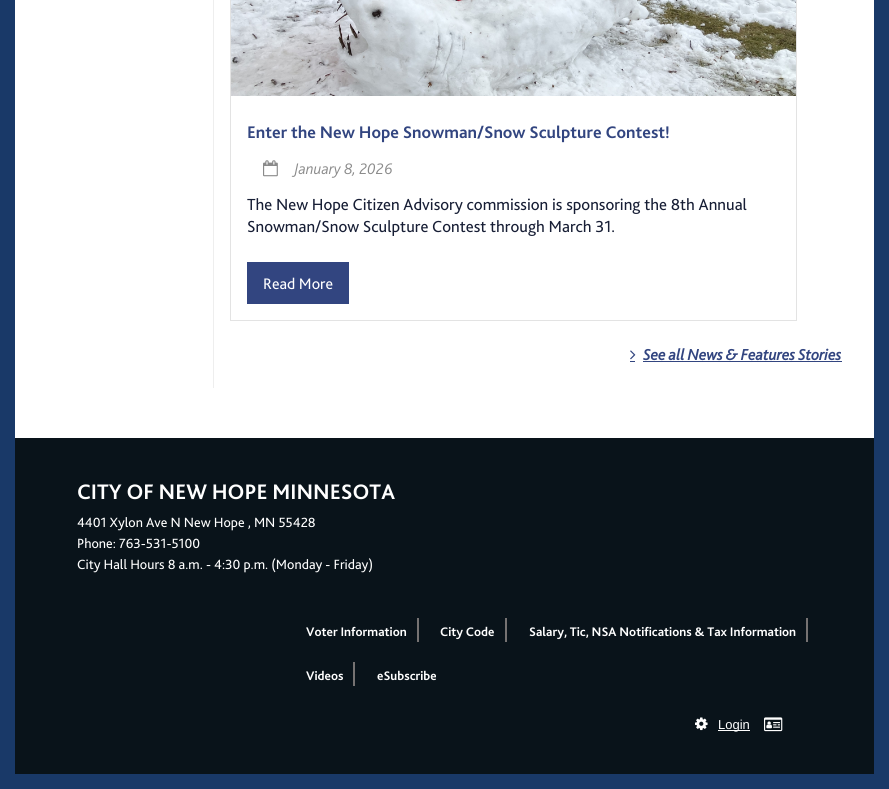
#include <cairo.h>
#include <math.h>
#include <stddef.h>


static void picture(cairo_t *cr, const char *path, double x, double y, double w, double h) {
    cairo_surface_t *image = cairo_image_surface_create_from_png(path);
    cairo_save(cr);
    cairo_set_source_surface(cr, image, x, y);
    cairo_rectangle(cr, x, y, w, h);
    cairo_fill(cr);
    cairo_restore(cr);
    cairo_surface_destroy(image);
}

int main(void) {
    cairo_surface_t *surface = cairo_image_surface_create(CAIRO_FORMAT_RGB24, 889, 789);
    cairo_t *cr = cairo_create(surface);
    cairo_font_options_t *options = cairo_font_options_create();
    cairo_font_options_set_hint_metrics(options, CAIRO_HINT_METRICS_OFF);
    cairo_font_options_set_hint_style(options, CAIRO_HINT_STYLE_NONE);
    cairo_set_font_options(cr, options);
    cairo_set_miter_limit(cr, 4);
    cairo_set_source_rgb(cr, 1, 1, 1);
    cairo_paint(cr);
    cairo_rectangle(cr, 7.5, -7.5, 874, 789);
    cairo_set_source_rgb(cr, 0.098, 0.224, 0.408);
    cairo_set_line_width(cr, 15);
    cairo_stroke(cr);
    cairo_set_source_rgb(cr, 0.933, 0.933, 0.933);
    cairo_rectangle(cr, 213, 0, 1, 388);
    cairo_fill(cr);
    cairo_rectangle(cr, 230.5, -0.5, 566, 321);
    cairo_set_source_rgb(cr, 0.89, 0.89, 0.89);
    cairo_set_line_width(cr, 1);
    cairo_stroke(cr);
    picture(cr, "img1.png", 231, 0, 565, 96);
    cairo_select_font_face(cr, "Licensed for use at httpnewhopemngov", CAIRO_FONT_SLANT_NORMAL, CAIRO_FONT_WEIGHT_BOLD);
    cairo_set_font_size(cr, 17.6);
    cairo_set_source_rgb(cr, 0.196, 0.271, 0.502);
    cairo_move_to(cr, 247, 138);
    cairo_show_text(cr, "Enter the New Hope Snowman/Snow Sculpture Contest!");
    picture(cr, "img2.png", 263, 160, 15, 17);
    cairo_select_font_face(cr, "Licensed for use at httpnewhopemngov Light", CAIRO_FONT_SLANT_ITALIC, CAIRO_FONT_WEIGHT_NORMAL);
    cairo_set_font_size(cr, 16);
    cairo_set_source_rgb(cr, 0.541, 0.541, 0.541);
    cairo_move_to(cr, 294, 174);
    cairo_show_text(cr, "January 8, 2026");
    cairo_select_font_face(cr, "Licensed for use at httpnewhopemngov", CAIRO_FONT_SLANT_NORMAL, CAIRO_FONT_WEIGHT_NORMAL);
    cairo_set_font_size(cr, 16.8);
    cairo_set_source_rgb(cr, 0.09, 0.118, 0.208);
    cairo_move_to(cr, 247, 210);
    cairo_show_text(cr, "The New Hope Citizen Advisory commission is sponsoring the 8th Annual");
    cairo_move_to(cr, 247, 232);
    cairo_show_text(cr, "Snowman/Snow Sculpture Contest through March 31.");
    cairo_set_source_rgb(cr, 0.196, 0.271, 0.502);
    cairo_rectangle(cr, 247, 262, 102, 42);
    cairo_fill(cr);
    cairo_set_font_size(cr, 16);
    cairo_set_source_rgb(cr, 1, 1, 1);
    cairo_move_to(cr, 263, 289);
    cairo_show_text(cr, "Read More");
    picture(cr, "img3.png", 630, 350, 6, 10);
    cairo_select_font_face(cr, "Licensed for use at httpnewhopemngov", CAIRO_FONT_SLANT_ITALIC, CAIRO_FONT_WEIGHT_BOLD);
    cairo_set_source_rgb(cr, 0.196, 0.271, 0.502);
    cairo_move_to(cr, 643, 360);
    cairo_show_text(cr, "See all News & Features Stories");
    cairo_rectangle(cr, 643, 361, 199, 1);
    cairo_fill(cr);
    cairo_rectangle(cr, 630, 361, 5, 1);
    cairo_fill(cr);
    cairo_set_source_rgb(cr, 0.039, 0.075, 0.102);
    cairo_rectangle(cr, 15, 438, 859, 336);
    cairo_fill(cr);
    cairo_select_font_face(cr, "Licensed for use at httpnewhopemngov", CAIRO_FONT_SLANT_NORMAL, CAIRO_FONT_WEIGHT_BOLD);
    cairo_set_font_size(cr, 22);
    cairo_set_source_rgb(cr, 1, 1, 1);
    cairo_move_to(cr, 77, 499);
    cairo_show_text(cr, "CITY OF NEW HOPE MINNESOTA");
    cairo_select_font_face(cr, "Licensed for use at httpnewhopemngov", CAIRO_FONT_SLANT_NORMAL, CAIRO_FONT_WEIGHT_NORMAL);
    cairo_set_font_size(cr, 14);
    cairo_move_to(cr, 77, 527);
    cairo_show_text(cr, "4401 Xylon Ave N New Hope , MN 55428");
    cairo_move_to(cr, 77, 548);
    cairo_show_text(cr, "Phone: 763-531-5100");
    cairo_move_to(cr, 77, 569);
    cairo_show_text(cr, "City Hall Hours 8 a.m. - 4:30 p.m. (Monday - Friday)");
    cairo_select_font_face(cr, "Licensed for use at httpnewhopemngov", CAIRO_FONT_SLANT_NORMAL, CAIRO_FONT_WEIGHT_BOLD);
    cairo_set_font_size(cr, 13);
    cairo_move_to(cr, 306, 636);
    cairo_show_text(cr, "Voter Information");
    cairo_set_source_rgb(cr, 0.459, 0.447, 0.447);
    cairo_rectangle(cr, 417, 618, 2, 24);
    cairo_fill(cr);
    cairo_set_source_rgb(cr, 1, 1, 1);
    cairo_move_to(cr, 440, 636);
    cairo_show_text(cr, "City Code");
    cairo_set_source_rgb(cr, 0.459, 0.447, 0.447);
    cairo_rectangle(cr, 505, 618, 2, 24);
    cairo_fill(cr);
    cairo_set_source_rgb(cr, 1, 1, 1);
    cairo_move_to(cr, 529, 636);
    cairo_show_text(cr, "Salary, Tic, NSA Notifications & Tax Information");
    cairo_set_source_rgb(cr, 0.459, 0.447, 0.447);
    cairo_rectangle(cr, 806, 618, 2, 24);
    cairo_fill(cr);
    cairo_set_source_rgb(cr, 1, 1, 1);
    cairo_move_to(cr, 306, 680);
    cairo_show_text(cr, "Videos");
    cairo_set_source_rgb(cr, 0.459, 0.447, 0.447);
    cairo_rectangle(cr, 353, 662, 2, 24);
    cairo_fill(cr);
    cairo_set_source_rgb(cr, 1, 1, 1);
    cairo_move_to(cr, 377, 680);
    cairo_show_text(cr, "eSubscribe");
    picture(cr, "img4.png", 695, 717, 13, 14);
    cairo_rectangle(cr, 718, 730, 32, 1);
    cairo_fill(cr);
    cairo_select_font_face(cr, "Liberation Sans", CAIRO_FONT_SLANT_NORMAL, CAIRO_FONT_WEIGHT_NORMAL);
    cairo_move_to(cr, 718, 729);
    cairo_show_text(cr, "Login");
    picture(cr, "img5.png", 764, 717, 19, 15);
    cairo_surface_write_to_png(surface, "page.png");
    cairo_font_options_destroy(options);
    cairo_destroy(cr);
    cairo_surface_destroy(surface);
    return 0;
}
